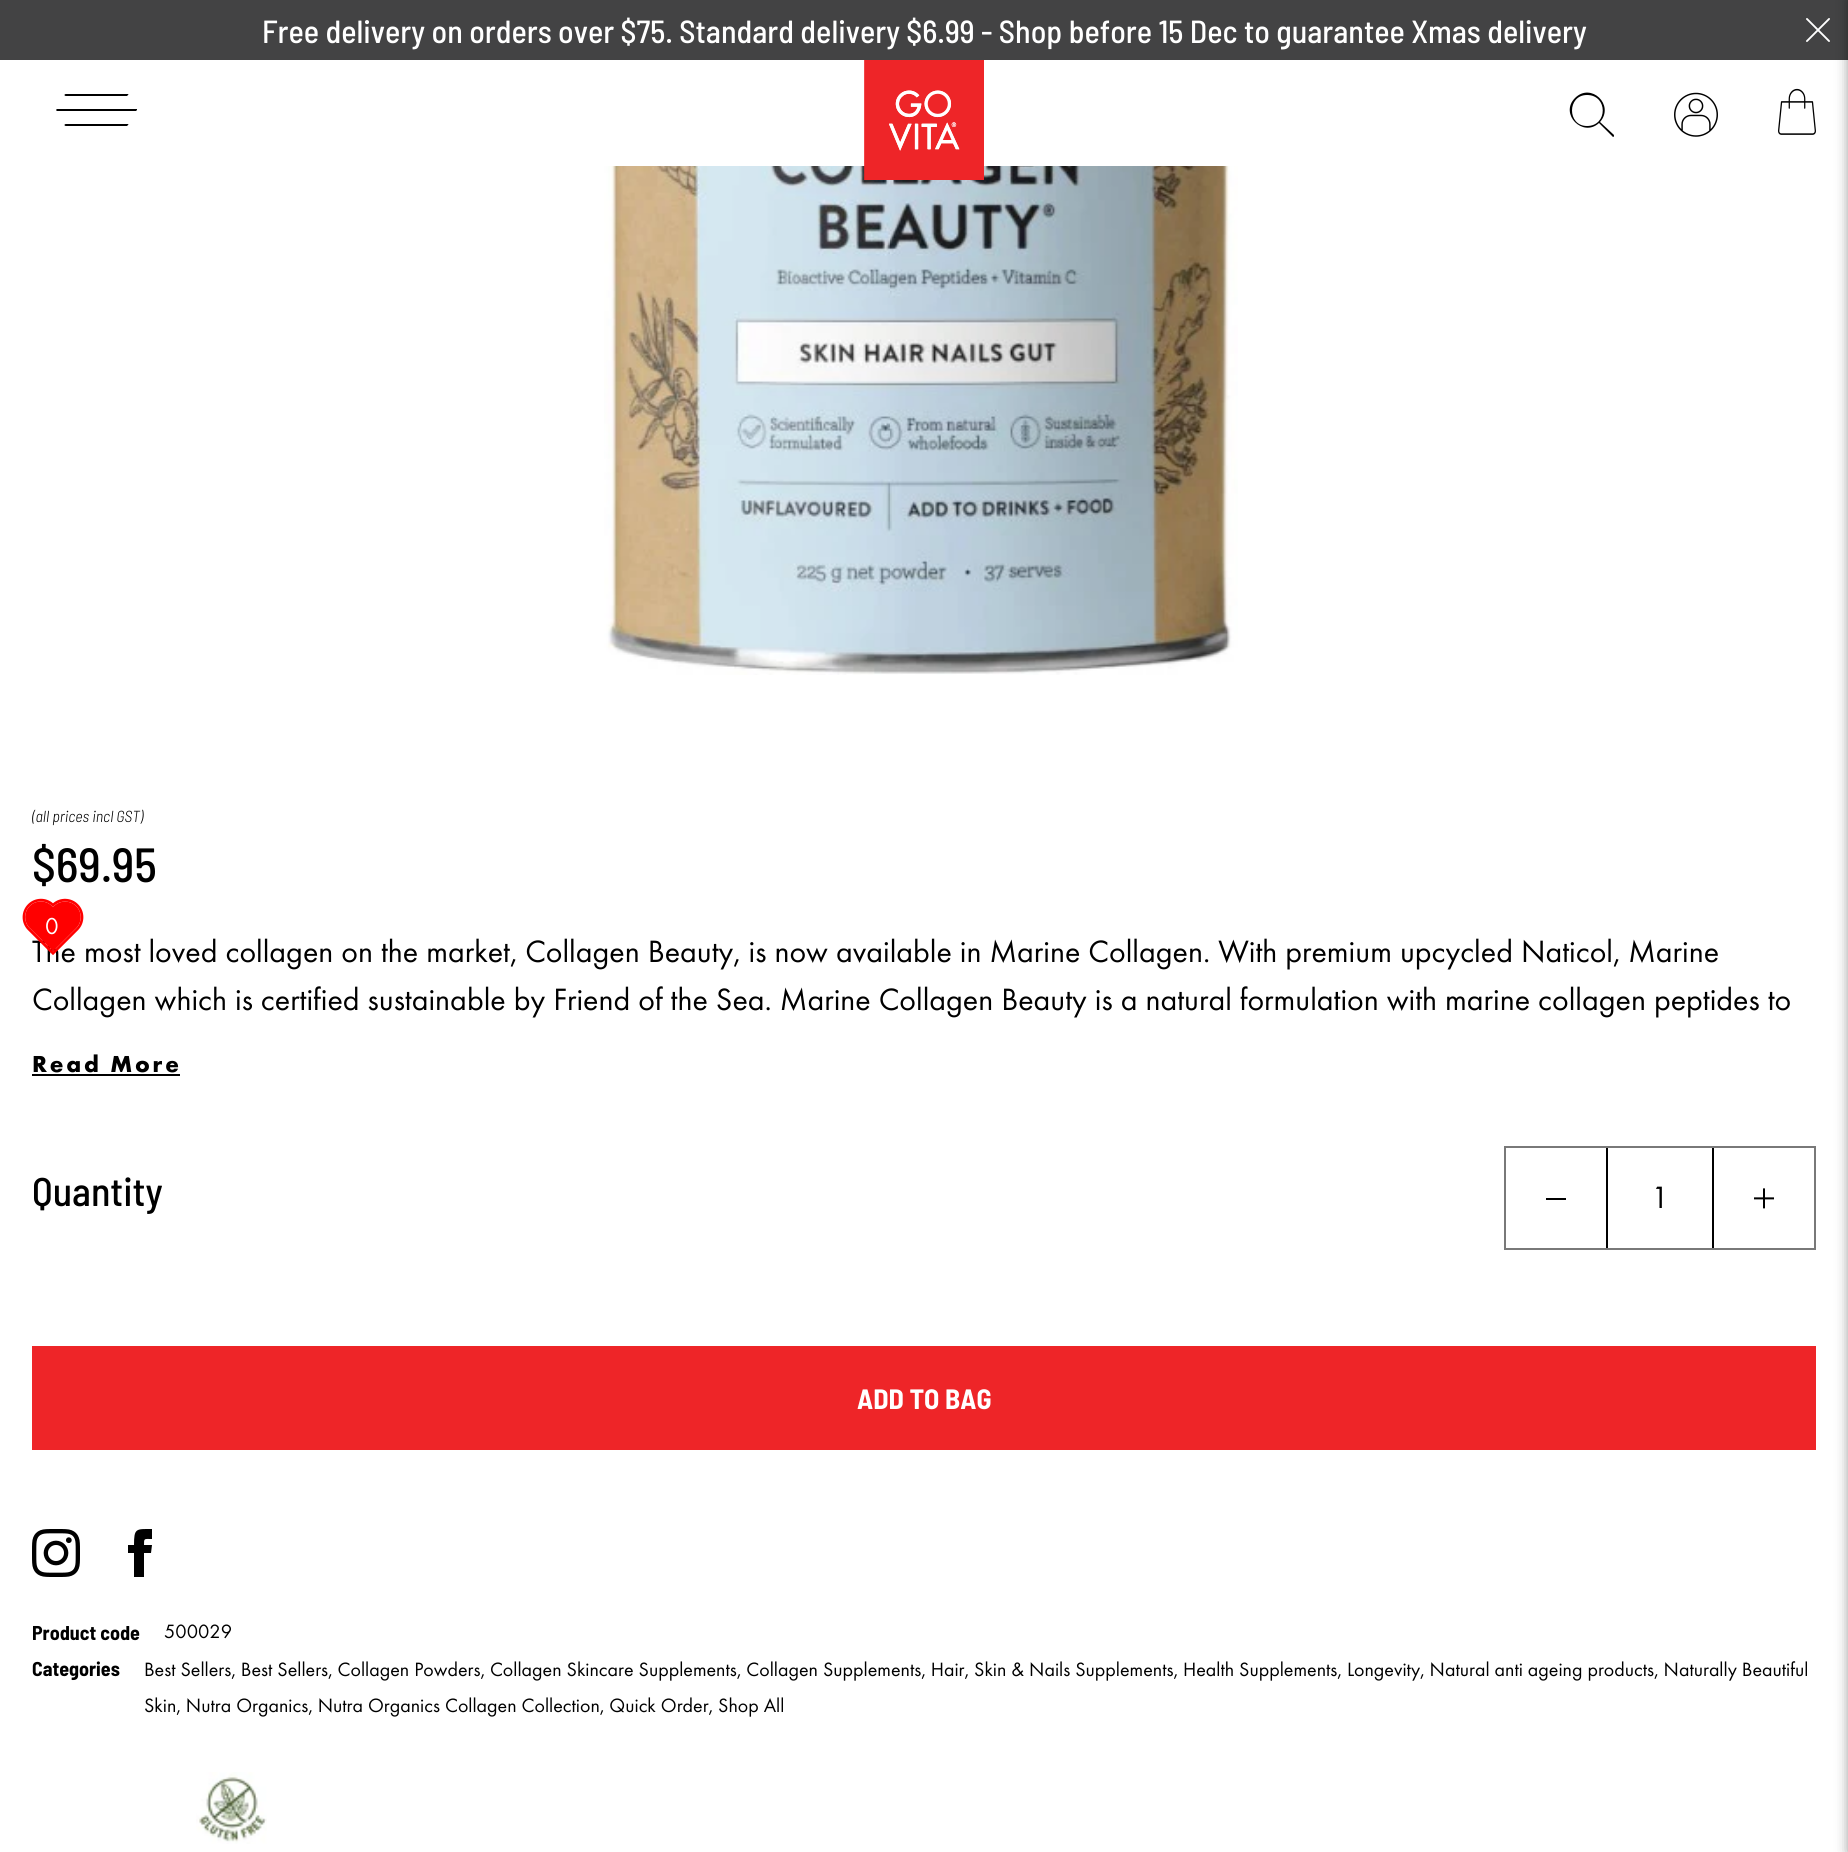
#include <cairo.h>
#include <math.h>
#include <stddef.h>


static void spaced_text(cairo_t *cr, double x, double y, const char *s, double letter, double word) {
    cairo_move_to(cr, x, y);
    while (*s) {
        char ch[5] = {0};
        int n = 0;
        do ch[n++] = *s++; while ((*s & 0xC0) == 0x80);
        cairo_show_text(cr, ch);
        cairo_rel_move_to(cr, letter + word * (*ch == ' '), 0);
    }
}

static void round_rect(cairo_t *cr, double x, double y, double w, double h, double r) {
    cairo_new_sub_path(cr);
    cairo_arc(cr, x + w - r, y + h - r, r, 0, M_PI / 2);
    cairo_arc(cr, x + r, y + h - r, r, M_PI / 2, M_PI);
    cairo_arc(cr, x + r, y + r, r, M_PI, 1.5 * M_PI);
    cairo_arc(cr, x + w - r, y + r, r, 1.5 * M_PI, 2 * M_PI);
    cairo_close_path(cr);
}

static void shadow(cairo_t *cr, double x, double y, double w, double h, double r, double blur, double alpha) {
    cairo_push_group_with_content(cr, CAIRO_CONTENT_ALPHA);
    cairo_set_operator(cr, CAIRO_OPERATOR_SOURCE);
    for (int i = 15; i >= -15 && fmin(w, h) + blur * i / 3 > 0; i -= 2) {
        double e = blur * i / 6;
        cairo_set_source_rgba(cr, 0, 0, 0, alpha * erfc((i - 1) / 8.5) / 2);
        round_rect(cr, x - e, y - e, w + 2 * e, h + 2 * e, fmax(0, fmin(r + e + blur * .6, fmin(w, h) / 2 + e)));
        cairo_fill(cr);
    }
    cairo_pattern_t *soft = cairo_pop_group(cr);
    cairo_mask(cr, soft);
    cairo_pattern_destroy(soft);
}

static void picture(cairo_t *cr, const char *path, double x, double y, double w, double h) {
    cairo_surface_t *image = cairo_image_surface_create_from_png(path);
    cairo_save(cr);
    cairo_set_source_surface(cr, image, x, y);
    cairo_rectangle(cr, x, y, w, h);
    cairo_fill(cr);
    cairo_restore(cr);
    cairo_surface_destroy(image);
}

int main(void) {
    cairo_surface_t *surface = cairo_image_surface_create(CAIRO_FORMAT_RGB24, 1848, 1852);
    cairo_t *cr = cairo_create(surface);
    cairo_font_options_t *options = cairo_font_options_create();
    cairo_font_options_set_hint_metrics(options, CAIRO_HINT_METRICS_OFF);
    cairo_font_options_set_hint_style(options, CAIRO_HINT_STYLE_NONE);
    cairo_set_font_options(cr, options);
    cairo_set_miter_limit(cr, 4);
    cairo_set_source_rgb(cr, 1, 1, 1);
    cairo_paint(cr);
    cairo_set_source_rgb(cr, 0.263, 0.263, 0.267);
    cairo_rectangle(cr, 0, 0, 1848, 60);
    cairo_fill(cr);
    cairo_select_font_face(cr, "Barlow Semi Condensed Medium", CAIRO_FONT_SLANT_NORMAL, CAIRO_FONT_WEIGHT_NORMAL);
    cairo_set_font_size(cr, 32);
    cairo_set_source_rgb(cr, 1, 1, 1);
    cairo_move_to(cr, 262, 43);
    cairo_show_text(cr, "Free delivery on orders over $75. Standard delivery $6.99 - Shop before 15 Dec to guarantee Xmas delivery");
    picture(cr, "img1.png", 1806, 18, 24, 24);
    cairo_set_source_rgb(cr, 0, 0, 0);
    cairo_new_path(cr);
    cairo_move_to(cr, 66, 94);
    cairo_line_to(cr, 128, 94);
    cairo_curve_to(cr, 128, 94, 129, 95, 128, 95);
    cairo_line_to(cr, 127, 96);
    cairo_line_to(cr, 66, 96);
    cairo_curve_to(cr, 64, 96, 64, 94, 66, 94);
    cairo_close_path(cr);
    cairo_move_to(cr, 66, 124);
    cairo_line_to(cr, 128, 124);
    cairo_curve_to(cr, 128, 124, 129, 125, 128, 125);
    cairo_line_to(cr, 127, 126);
    cairo_line_to(cr, 66, 126);
    cairo_curve_to(cr, 64, 126, 64, 124, 66, 124);
    cairo_close_path(cr);
    cairo_move_to(cr, 57, 109);
    cairo_line_to(cr, 137, 109);
    cairo_line_to(cr, 137, 110);
    cairo_line_to(cr, 136, 111);
    cairo_line_to(cr, 57, 111);
    cairo_curve_to(cr, 56, 111, 56, 109, 57, 109);
    cairo_close_path(cr);
    cairo_fill(cr);
    picture(cr, "img5.png", 604, 166, 634, 509);
    picture(cr, "img2.png", 864, 60, 120, 120);
    cairo_new_path(cr);
    cairo_move_to(cr, 1614, 135);
    cairo_line_to(cr, 1600, 122);
    cairo_curve_to(cr, 1615, 105, 1591, 82, 1575, 98);
    cairo_curve_to(cr, 1559, 114, 1583, 138, 1599, 123);
    cairo_line_to(cr, 1613, 137);
    cairo_curve_to(cr, 1614, 137, 1614, 136, 1614, 135);
    cairo_close_path(cr);
    cairo_move_to(cr, 1587, 126);
    cairo_curve_to(cr, 1567, 126, 1567, 95, 1587, 95);
    cairo_curve_to(cr, 1608, 95, 1608, 126, 1587, 126);
    cairo_close_path(cr);
    cairo_fill(cr);
    picture(cr, "img3.png", 1674, 92, 44, 45);
    picture(cr, "img4.png", 1778, 88, 38, 47);
    cairo_select_font_face(cr, "Barlow Semi Condensed Light", CAIRO_FONT_SLANT_ITALIC, CAIRO_FONT_WEIGHT_NORMAL);
    cairo_set_font_size(cr, 16);
    cairo_move_to(cr, 32, 822);
    cairo_show_text(cr, "(all prices incl GST)");
    cairo_select_font_face(cr, "Barlow Semi Condensed Medium", CAIRO_FONT_SLANT_NORMAL, CAIRO_FONT_WEIGHT_NORMAL);
    cairo_set_font_size(cr, 48);
    cairo_move_to(cr, 32, 882);
    cairo_show_text(cr, "$69.95");
    cairo_select_font_face(cr, "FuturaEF", CAIRO_FONT_SLANT_NORMAL, CAIRO_FONT_WEIGHT_NORMAL);
    cairo_set_font_size(cr, 32);
    cairo_move_to(cr, 32, 962);
    cairo_show_text(cr, "The most loved collagen on the market, Collagen Beauty, is now available in Marine Collagen. With premium upcycled Naticol, Marine");
    cairo_move_to(cr, 32, 1010);
    cairo_show_text(cr, "Collagen which is certified sustainable by Friend of the Sea. Marine Collagen Beauty is a natural formulation with marine collagen peptides to");
    cairo_select_font_face(cr, "FuturaEF", CAIRO_FONT_SLANT_NORMAL, CAIRO_FONT_WEIGHT_BOLD);
    cairo_set_font_size(cr, 24);
    spaced_text(cr, 32, 1072, "Read More", 2.75, 0);
    cairo_rectangle(cr, 32, 1074, 148, 2);
    cairo_fill(cr);
    cairo_select_font_face(cr, "Barlow Semi Condensed Medium", CAIRO_FONT_SLANT_NORMAL, CAIRO_FONT_WEIGHT_NORMAL);
    cairo_set_font_size(cr, 40);
    cairo_move_to(cr, 32, 1206);
    cairo_show_text(cr, "Quantity");
    cairo_rectangle(cr, 1505, 1147, 310, 102);
    cairo_set_source_rgb(cr, 0.475, 0.475, 0.475);
    cairo_stroke(cr);
    cairo_set_source_rgb(cr, 0, 0, 0);
    cairo_rectangle(cr, 1606, 1148, 2, 100);
    cairo_fill(cr);
    cairo_rectangle(cr, 1546, 1198, 20, 2);
    cairo_fill(cr);
    cairo_select_font_face(cr, "FuturaEF", CAIRO_FONT_SLANT_NORMAL, CAIRO_FONT_WEIGHT_NORMAL);
    cairo_set_font_size(cr, 32);
    cairo_move_to(cr, 1651, 1208);
    cairo_show_text(cr, "1");
    cairo_rectangle(cr, 1712, 1148, 2, 100);
    cairo_fill(cr);
    picture(cr, "img6.png", 1754, 1188, 20, 21);
    cairo_set_source_rgb(cr, 0.933, 0.145, 0.157);
    cairo_rectangle(cr, 32, 1346, 1784, 104);
    cairo_fill(cr);
    cairo_select_font_face(cr, "Barlow Semi Condensed", CAIRO_FONT_SLANT_NORMAL, CAIRO_FONT_WEIGHT_BOLD);
    cairo_set_font_size(cr, 28);
    cairo_set_source_rgb(cr, 1, 1, 1);
    cairo_move_to(cr, 857, 1409);
    cairo_show_text(cr, "ADD TO BAG");
    picture(cr, "img7.png", 32, 1529, 48, 48);
    cairo_set_source_rgb(cr, 0, 0, 0);
    cairo_new_path(cr);
    cairo_move_to(cr, 134, 1545);
    cairo_line_to(cr, 128, 1545);
    cairo_line_to(cr, 128, 1553);
    cairo_line_to(cr, 134, 1553);
    cairo_line_to(cr, 134, 1577);
    cairo_line_to(cr, 144, 1577);
    cairo_line_to(cr, 144, 1553);
    cairo_line_to(cr, 151, 1553);
    cairo_line_to(cr, 152, 1545);
    cairo_line_to(cr, 144, 1545);
    cairo_curve_to(cr, 144, 1538, 144, 1539, 152, 1539);
    cairo_line_to(cr, 152, 1529);
    cairo_curve_to(cr, 136, 1529, 134, 1528, 134, 1545);
    cairo_close_path(cr);
    cairo_fill(cr);
    cairo_set_font_size(cr, 20);
    cairo_move_to(cr, 32, 1640);
    cairo_show_text(cr, "Product code");
    cairo_select_font_face(cr, "FuturaEF", CAIRO_FONT_SLANT_NORMAL, CAIRO_FONT_WEIGHT_NORMAL);
    cairo_move_to(cr, 164, 1638);
    cairo_show_text(cr, "500029");
    cairo_select_font_face(cr, "Barlow Semi Condensed", CAIRO_FONT_SLANT_NORMAL, CAIRO_FONT_WEIGHT_BOLD);
    cairo_move_to(cr, 32, 1676);
    cairo_show_text(cr, "Categories");
    cairo_select_font_face(cr, "FuturaEF", CAIRO_FONT_SLANT_NORMAL, CAIRO_FONT_WEIGHT_NORMAL);
    cairo_move_to(cr, 144, 1676);
    cairo_show_text(cr, "Best Sellers, Best Sellers, Collagen Powders, Collagen Skincare Supplements, Collagen Supplements, Hair, Skin & Nails Supplements, Health Supplements, Longevity, Natural anti ageing products, Naturally Beautiful");
    cairo_move_to(cr, 144, 1712);
    cairo_show_text(cr, "Skin, Nutra Organics, Nutra Organics Collagen Collection, Quick Order, Shop All");
    picture(cr, "img8.png", 196, 1772, 71, 72);
    picture(cr, "img9.png", 22, 898, 62, 57);
    cairo_set_font_size(cr, 24);
    cairo_set_source_rgb(cr, 1, 1, 1);
    cairo_move_to(cr, 45, 934);
    cairo_show_text(cr, "0");
    cairo_set_source_rgb(cr, 0, 0, 0);
    shadow(cr, 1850, 0, 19, 1852, 0, 7, 0.5);
    cairo_surface_write_to_png(surface, "page.png");
    cairo_font_options_destroy(options);
    cairo_destroy(cr);
    cairo_surface_destroy(surface);
    return 0;
}
